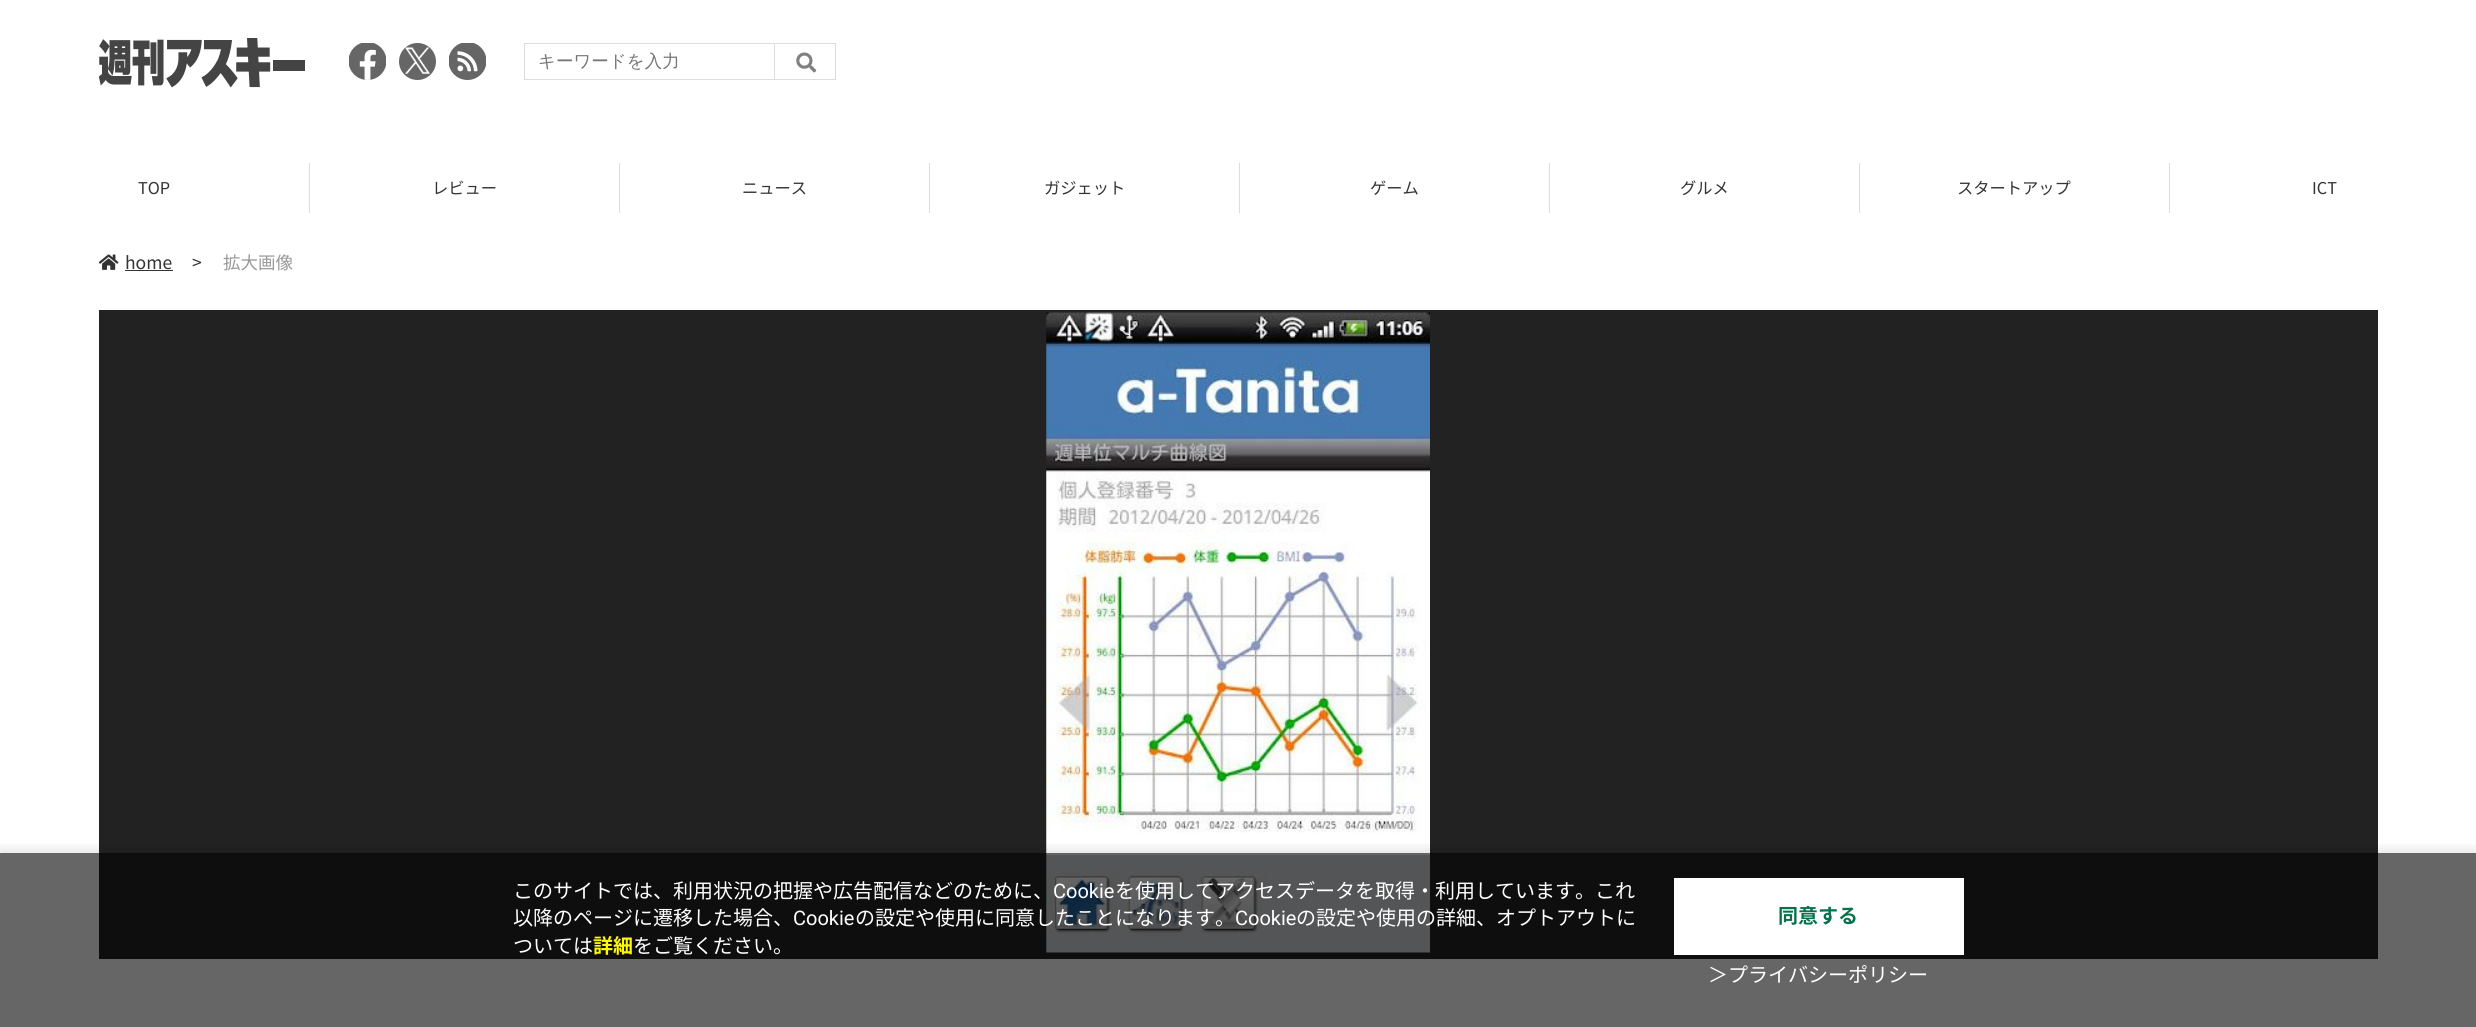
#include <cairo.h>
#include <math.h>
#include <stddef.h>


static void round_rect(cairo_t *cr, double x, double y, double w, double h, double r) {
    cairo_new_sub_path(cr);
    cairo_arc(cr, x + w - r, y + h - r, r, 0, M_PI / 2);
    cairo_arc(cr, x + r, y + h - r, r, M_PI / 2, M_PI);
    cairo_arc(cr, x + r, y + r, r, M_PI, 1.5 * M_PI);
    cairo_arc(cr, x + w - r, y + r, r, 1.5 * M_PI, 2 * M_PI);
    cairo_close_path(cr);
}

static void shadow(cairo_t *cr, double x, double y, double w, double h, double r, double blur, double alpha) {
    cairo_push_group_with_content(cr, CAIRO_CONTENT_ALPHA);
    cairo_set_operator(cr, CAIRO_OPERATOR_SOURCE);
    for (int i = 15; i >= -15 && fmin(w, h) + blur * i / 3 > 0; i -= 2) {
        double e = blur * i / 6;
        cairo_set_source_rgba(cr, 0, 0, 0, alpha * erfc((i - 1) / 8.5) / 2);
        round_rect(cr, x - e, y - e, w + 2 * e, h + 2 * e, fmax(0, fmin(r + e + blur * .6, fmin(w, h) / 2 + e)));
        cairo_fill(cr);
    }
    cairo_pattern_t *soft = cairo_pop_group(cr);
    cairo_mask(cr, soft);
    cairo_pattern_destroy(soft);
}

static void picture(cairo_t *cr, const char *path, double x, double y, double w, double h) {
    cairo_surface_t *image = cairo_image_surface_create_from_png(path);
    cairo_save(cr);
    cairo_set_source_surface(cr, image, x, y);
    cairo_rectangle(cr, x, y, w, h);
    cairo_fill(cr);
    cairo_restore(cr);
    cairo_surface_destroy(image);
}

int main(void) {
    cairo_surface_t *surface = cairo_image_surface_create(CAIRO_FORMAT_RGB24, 2476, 1027);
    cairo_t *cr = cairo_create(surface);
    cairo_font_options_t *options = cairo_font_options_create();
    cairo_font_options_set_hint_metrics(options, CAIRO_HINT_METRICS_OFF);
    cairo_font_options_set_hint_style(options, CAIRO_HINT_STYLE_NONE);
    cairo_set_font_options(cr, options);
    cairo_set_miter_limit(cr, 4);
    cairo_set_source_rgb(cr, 1, 1, 1);
    cairo_paint(cr);
    picture(cr, "img1.png", 99, 38, 206, 50);
    picture(cr, "img2.png", 349, 43, 37, 37);
    cairo_set_source_rgb(cr, 0.4, 0.4, 0.4);
    cairo_arc(cr, 417.5, 61.5, 18.5, 0, 2 * M_PI);
    cairo_fill(cr);
    picture(cr, "img3.png", 405, 47, 25, 27);
    picture(cr, "img4.png", 449, 43, 37, 37);
    cairo_set_source_rgb(cr, 0.867, 0.867, 0.867);
    cairo_rectangle(cr, 524, 43, 250, 1);
    cairo_fill(cr);
    cairo_rectangle(cr, 524, 79, 250, 1);
    cairo_fill(cr);
    cairo_rectangle(cr, 524, 43, 1, 37);
    cairo_fill(cr);
    cairo_select_font_face(cr, "WenQuanYi Zen Hei Medium", CAIRO_FONT_SLANT_NORMAL, CAIRO_FONT_WEIGHT_NORMAL);
    cairo_set_font_size(cr, 17.5);
    cairo_set_source_rgb(cr, 0.459, 0.459, 0.459);
    cairo_move_to(cr, 538, 67);
    cairo_show_text(cr, "キーワードを入力");
    cairo_rectangle(cr, 774.5, 43.5, 61, 36);
    cairo_set_source_rgb(cr, 0.867, 0.867, 0.867);
    cairo_set_line_width(cr, 1);
    cairo_stroke(cr);
    picture(cr, "img5.png", 796, 52, 21, 21);
    cairo_rectangle(cr, 309, 163, 1, 50);
    cairo_fill(cr);
    cairo_select_font_face(cr, "Noto Sans JP Thin", CAIRO_FONT_SLANT_NORMAL, CAIRO_FONT_WEIGHT_NORMAL);
    cairo_set_font_size(cr, 16.25);
    cairo_set_source_rgb(cr, 0.2, 0.2, 0.2);
    cairo_move_to(cr, 138, 194);
    cairo_show_text(cr, "TOP");
    cairo_set_source_rgb(cr, 0.867, 0.867, 0.867);
    cairo_rectangle(cr, 619, 163, 1, 50);
    cairo_fill(cr);
    cairo_set_source_rgb(cr, 0.2, 0.2, 0.2);
    cairo_move_to(cr, 432, 194);
    cairo_show_text(cr, "レビュー");
    cairo_set_source_rgb(cr, 0.867, 0.867, 0.867);
    cairo_rectangle(cr, 929, 163, 1, 50);
    cairo_fill(cr);
    cairo_set_source_rgb(cr, 0.2, 0.2, 0.2);
    cairo_move_to(cr, 742, 194);
    cairo_show_text(cr, "ニュース");
    cairo_set_source_rgb(cr, 0.867, 0.867, 0.867);
    cairo_rectangle(cr, 1239, 163, 1, 50);
    cairo_fill(cr);
    cairo_set_source_rgb(cr, 0.2, 0.2, 0.2);
    cairo_move_to(cr, 1044, 194);
    cairo_show_text(cr, "ガジェット");
    cairo_set_source_rgb(cr, 0.867, 0.867, 0.867);
    cairo_rectangle(cr, 1549, 163, 1, 50);
    cairo_fill(cr);
    cairo_set_source_rgb(cr, 0.2, 0.2, 0.2);
    cairo_move_to(cr, 1370, 194);
    cairo_show_text(cr, "ゲーム");
    cairo_set_source_rgb(cr, 0.867, 0.867, 0.867);
    cairo_rectangle(cr, 1859, 163, 1, 50);
    cairo_fill(cr);
    cairo_set_source_rgb(cr, 0.2, 0.2, 0.2);
    cairo_move_to(cr, 1680, 194);
    cairo_show_text(cr, "グルメ");
    cairo_set_source_rgb(cr, 0.867, 0.867, 0.867);
    cairo_rectangle(cr, 2169, 163, 1, 50);
    cairo_fill(cr);
    cairo_set_source_rgb(cr, 0.2, 0.2, 0.2);
    cairo_move_to(cr, 1957, 194);
    cairo_show_text(cr, "スタートアップ");
    cairo_move_to(cr, 2312, 194);
    cairo_show_text(cr, "ICT");
    picture(cr, "img6.png", 98, 254, 21, 16);
    cairo_set_font_size(cr, 17.5);
    cairo_move_to(cr, 125, 269);
    cairo_show_text(cr, "home");
    cairo_rectangle(cr, 125, 270, 48, 1);
    cairo_fill(cr);
    cairo_move_to(cr, 192, 269);
    cairo_show_text(cr, ">");
    cairo_set_source_rgb(cr, 0.6, 0.6, 0.6);
    cairo_move_to(cr, 223, 269);
    cairo_show_text(cr, "拡大画像");
    cairo_set_source_rgb(cr, 0.133, 0.133, 0.133);
    cairo_rectangle(cr, 99, 310, 2279, 649);
    cairo_fill(cr);
    picture(cr, "img7.png", 1046, 312, 384, 641);
    cairo_save(cr);
    cairo_rectangle(cr, 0, 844, 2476, 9);
    cairo_clip(cr);
    cairo_set_source_rgb(cr, 0, 0, 0);
    shadow(cr, 0, 849, 2476, 175, 0, 6, 0.1);
    cairo_restore(cr);
    cairo_set_source_rgba(cr, 0, 0, 0, 0.6);
    cairo_rectangle(cr, 0, 853, 2476, 174);
    cairo_fill(cr);
    cairo_set_font_size(cr, 20);
    cairo_set_source_rgb(cr, 1, 1, 1);
    cairo_move_to(cr, 513, 898);
    cairo_show_text(cr, "このサイトでは、利用状況の把握や広告配信などのために、");
    cairo_select_font_face(cr, "Roboto", CAIRO_FONT_SLANT_NORMAL, CAIRO_FONT_WEIGHT_NORMAL);
    cairo_move_to(cr, 1053, 898);
    cairo_show_text(cr, "Cookie");
    cairo_select_font_face(cr, "Noto Sans JP Thin", CAIRO_FONT_SLANT_NORMAL, CAIRO_FONT_WEIGHT_NORMAL);
    cairo_move_to(cr, 1115, 898);
    cairo_show_text(cr, "を使用してアクセスデータを取得・利用しています。これ");
    cairo_move_to(cr, 513, 925);
    cairo_show_text(cr, "以降のページに遷移した場合、");
    cairo_select_font_face(cr, "Roboto", CAIRO_FONT_SLANT_NORMAL, CAIRO_FONT_WEIGHT_NORMAL);
    cairo_move_to(cr, 793, 925);
    cairo_show_text(cr, "Cookie");
    cairo_select_font_face(cr, "Noto Sans JP Thin", CAIRO_FONT_SLANT_NORMAL, CAIRO_FONT_WEIGHT_NORMAL);
    cairo_move_to(cr, 855, 925);
    cairo_show_text(cr, "の設定や使用に同意したことになります。");
    cairo_select_font_face(cr, "Roboto", CAIRO_FONT_SLANT_NORMAL, CAIRO_FONT_WEIGHT_NORMAL);
    cairo_move_to(cr, 1235, 925);
    cairo_show_text(cr, "Cookie");
    cairo_select_font_face(cr, "Noto Sans JP Thin", CAIRO_FONT_SLANT_NORMAL, CAIRO_FONT_WEIGHT_NORMAL);
    cairo_move_to(cr, 1296, 925);
    cairo_show_text(cr, "の設定や使用の詳細、オプトアウトに");
    cairo_move_to(cr, 513, 953);
    cairo_show_text(cr, "ついては");
    cairo_select_font_face(cr, "Noto Sans JP", CAIRO_FONT_SLANT_NORMAL, CAIRO_FONT_WEIGHT_BOLD);
    cairo_set_source_rgb(cr, 1, 0.98, 0);
    cairo_move_to(cr, 593, 953);
    cairo_show_text(cr, "詳細");
    cairo_select_font_face(cr, "Noto Sans JP Thin", CAIRO_FONT_SLANT_NORMAL, CAIRO_FONT_WEIGHT_NORMAL);
    cairo_set_source_rgb(cr, 1, 1, 1);
    cairo_move_to(cr, 633, 953);
    cairo_show_text(cr, "をご覧ください。");
    cairo_rectangle(cr, 1674, 878, 290, 77);
    cairo_fill(cr);
    cairo_select_font_face(cr, "Noto Sans JP", CAIRO_FONT_SLANT_NORMAL, CAIRO_FONT_WEIGHT_BOLD);
    cairo_set_source_rgb(cr, 0.02, 0.447, 0.294);
    cairo_move_to(cr, 1778, 923);
    cairo_show_text(cr, "同意する");
    cairo_select_font_face(cr, "Noto Sans JP Thin", CAIRO_FONT_SLANT_NORMAL, CAIRO_FONT_WEIGHT_NORMAL);
    cairo_set_source_rgb(cr, 1, 1, 1);
    cairo_move_to(cr, 1708, 982);
    cairo_show_text(cr, "＞プライバシーポリシー");
    cairo_surface_write_to_png(surface, "page.png");
    cairo_font_options_destroy(options);
    cairo_destroy(cr);
    cairo_surface_destroy(surface);
    return 0;
}
